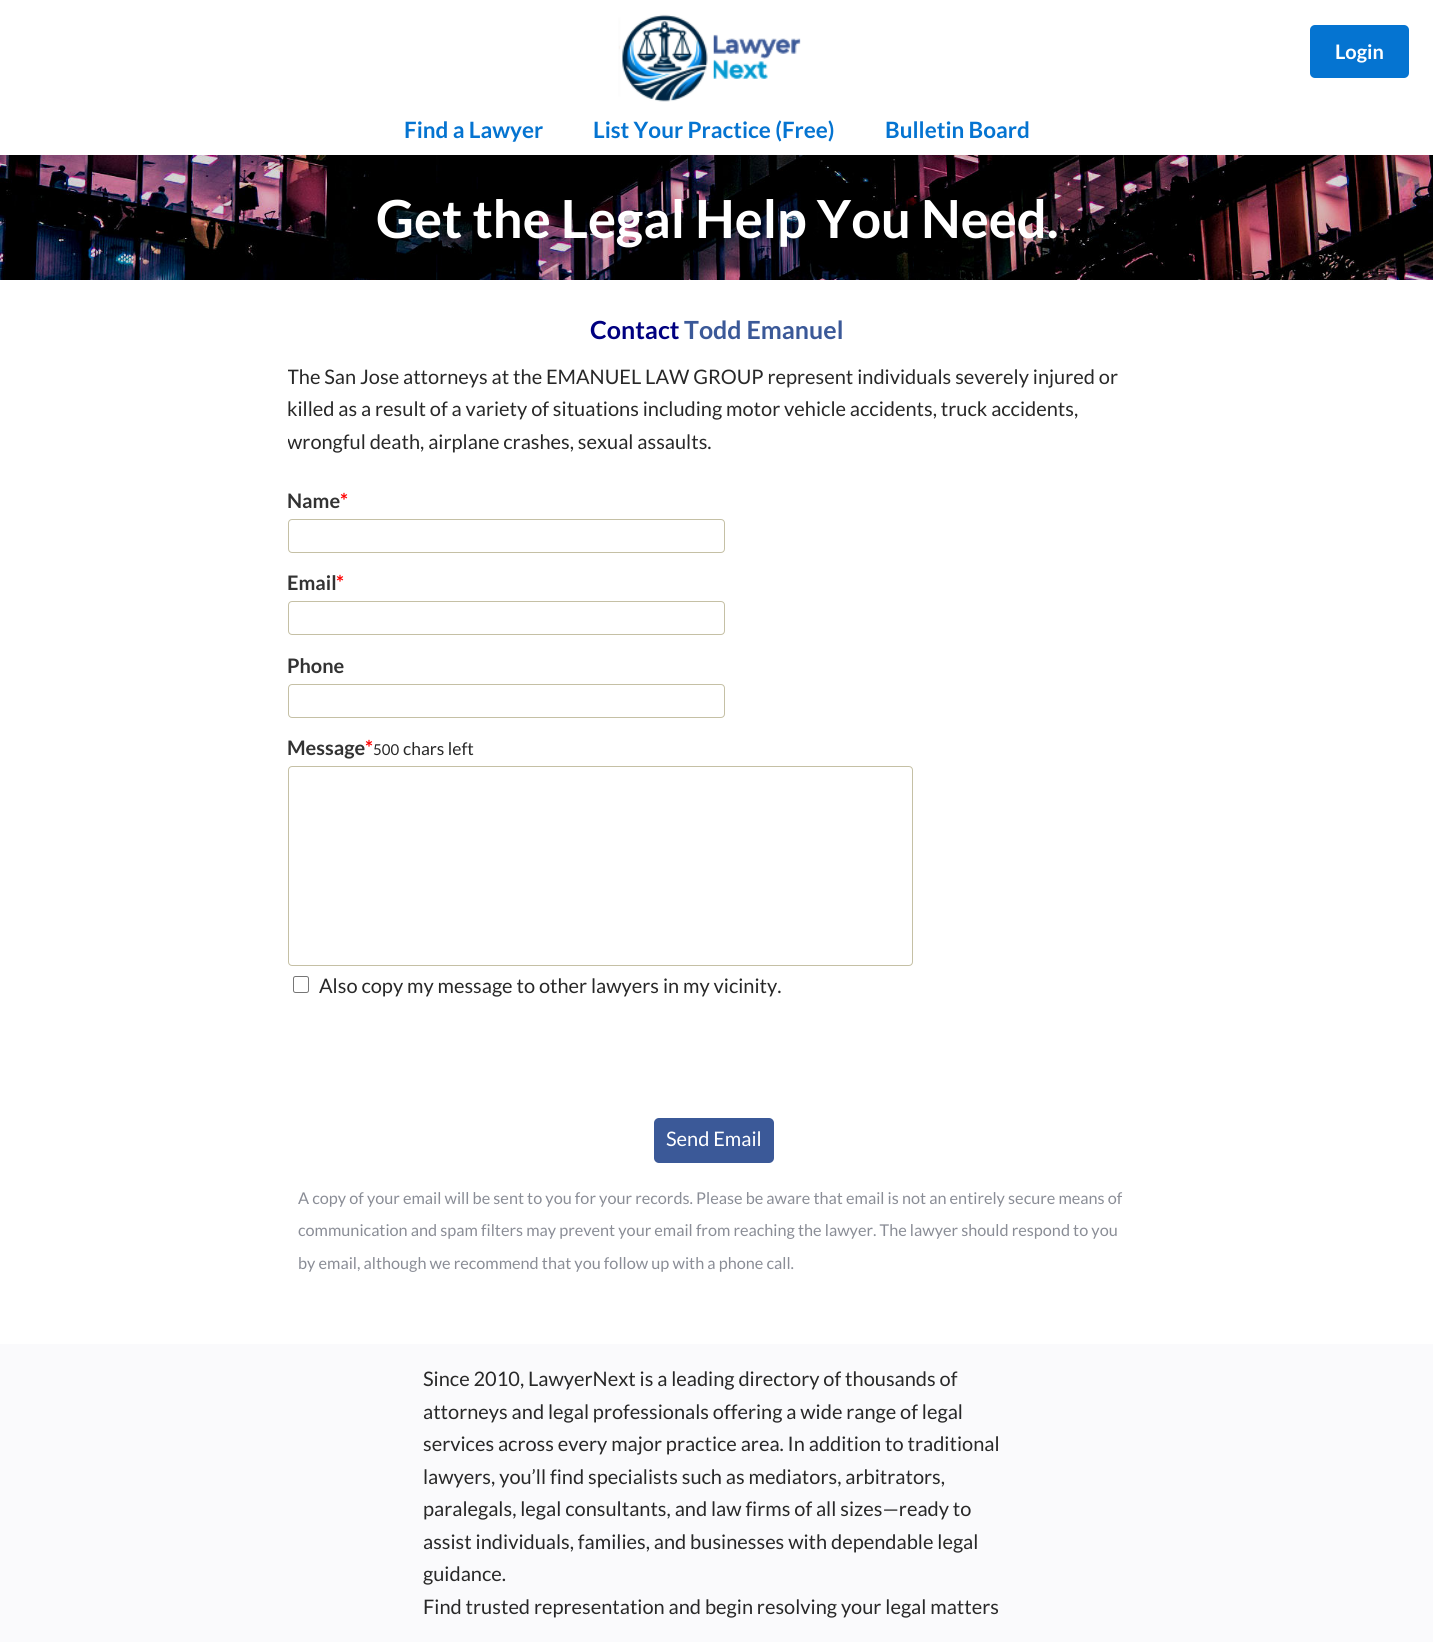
#include <cairo.h>
#include <math.h>
#include <stddef.h>


static void round_rect(cairo_t *cr, double x, double y, double w, double h, double r) {
    cairo_new_sub_path(cr);
    cairo_arc(cr, x + w - r, y + h - r, r, 0, M_PI / 2);
    cairo_arc(cr, x + r, y + h - r, r, M_PI / 2, M_PI);
    cairo_arc(cr, x + r, y + r, r, M_PI, 1.5 * M_PI);
    cairo_arc(cr, x + w - r, y + r, r, 1.5 * M_PI, 2 * M_PI);
    cairo_close_path(cr);
}

static void picture(cairo_t *cr, const char *path, double x, double y, double w, double h) {
    cairo_surface_t *image = cairo_image_surface_create_from_png(path);
    cairo_save(cr);
    cairo_set_source_surface(cr, image, x, y);
    cairo_rectangle(cr, x, y, w, h);
    cairo_fill(cr);
    cairo_restore(cr);
    cairo_surface_destroy(image);
}

int main(void) {
    cairo_surface_t *surface = cairo_image_surface_create(CAIRO_FORMAT_RGB24, 1433, 1642);
    cairo_t *cr = cairo_create(surface);
    cairo_font_options_t *options = cairo_font_options_create();
    cairo_font_options_set_hint_metrics(options, CAIRO_HINT_METRICS_OFF);
    cairo_font_options_set_hint_style(options, CAIRO_HINT_STYLE_NONE);
    cairo_set_font_options(cr, options);
    cairo_set_miter_limit(cr, 4);
    cairo_set_source_rgb(cr, 1, 1, 1);
    cairo_paint(cr);
    picture(cr, "img1.png", 618, 14, 183, 88);
    cairo_set_source_rgb(cr, 0.02, 0.455, 0.82);
    round_rect(cr, 1310, 25, 99, 53, 5);
    cairo_fill(cr);
    cairo_select_font_face(cr, "Lato", CAIRO_FONT_SLANT_NORMAL, CAIRO_FONT_WEIGHT_BOLD);
    cairo_set_font_size(cr, 20);
    cairo_set_source_rgb(cr, 1, 1, 1);
    cairo_move_to(cr, 1335, 59);
    cairo_show_text(cr, "Login");
    cairo_set_font_size(cr, 22.5);
    cairo_set_source_rgb(cr, 0.02, 0.455, 0.82);
    cairo_move_to(cr, 404, 138);
    cairo_show_text(cr, "Find a Lawyer");
    cairo_move_to(cr, 593, 138);
    cairo_show_text(cr, "List Your Practice (Free)");
    cairo_move_to(cr, 885, 138);
    cairo_show_text(cr, "Bulletin Board");
    picture(cr, "img2.png", 0, 155, 1433, 125);
    cairo_set_font_size(cr, 52.5);
    cairo_set_source_rgb(cr, 1, 1, 1);
    cairo_move_to(cr, 376, 238);
    cairo_show_text(cr, "Get the Legal Help You Need.");
    cairo_set_font_size(cr, 25);
    cairo_set_source_rgb(cr, 0, 0, 0.502);
    cairo_move_to(cr, 590, 339);
    cairo_show_text(cr, "Contact");
    cairo_set_source_rgb(cr, 0.231, 0.349, 0.596);
    cairo_move_to(cr, 684, 339);
    cairo_show_text(cr, "Todd Emanuel");
    cairo_save(cr);
    cairo_rectangle(cr, 288, 360, 860, 98);
    cairo_clip(cr);
    cairo_select_font_face(cr, "Lato", CAIRO_FONT_SLANT_NORMAL, CAIRO_FONT_WEIGHT_NORMAL);
    cairo_set_font_size(cr, 20);
    cairo_set_source_rgb(cr, 0.157, 0.157, 0.157);
    cairo_move_to(cr, 287, 384);
    cairo_show_text(cr, "The San Jose attorneys at the EMANUEL LAW GROUP represent individuals severely injured or");
    cairo_restore(cr);
    cairo_select_font_face(cr, "Lato", CAIRO_FONT_SLANT_NORMAL, CAIRO_FONT_WEIGHT_NORMAL);
    cairo_set_font_size(cr, 20);
    cairo_set_source_rgb(cr, 0.157, 0.157, 0.157);
    cairo_move_to(cr, 287, 416);
    cairo_show_text(cr, "killed as a result of a variety of situations including motor vehicle accidents, truck accidents,");
    cairo_save(cr);
    cairo_rectangle(cr, 288, 360, 860, 98);
    cairo_clip(cr);
    cairo_move_to(cr, 287, 449);
    cairo_show_text(cr, "wrongful death, airplane crashes, sexual assaults.");
    cairo_restore(cr);
    cairo_select_font_face(cr, "Lato", CAIRO_FONT_SLANT_NORMAL, CAIRO_FONT_WEIGHT_BOLD);
    cairo_set_source_rgb(cr, 0.2, 0.2, 0.2);
    cairo_move_to(cr, 287, 508);
    cairo_show_text(cr, "Name");
    cairo_set_source_rgb(cr, 1, 0, 0);
    cairo_move_to(cr, 340, 508);
    cairo_show_text(cr, "*");
    round_rect(cr, 288.5, 519.5, 436, 33, 3.5);
    cairo_set_source_rgb(cr, 0.773, 0.753, 0.647);
    cairo_set_line_width(cr, 1);
    cairo_stroke(cr);
    cairo_set_source_rgb(cr, 0.2, 0.2, 0.2);
    cairo_move_to(cr, 287, 590);
    cairo_show_text(cr, "Email");
    cairo_set_source_rgb(cr, 1, 0, 0);
    cairo_move_to(cr, 336, 590);
    cairo_show_text(cr, "*");
    round_rect(cr, 288.5, 601.5, 436, 33, 3.5);
    cairo_set_source_rgb(cr, 0.773, 0.753, 0.647);
    cairo_stroke(cr);
    cairo_set_source_rgb(cr, 0.2, 0.2, 0.2);
    cairo_move_to(cr, 287, 673);
    cairo_show_text(cr, "Phone");
    round_rect(cr, 288.5, 684.5, 436, 33, 3.5);
    cairo_set_source_rgb(cr, 0.773, 0.753, 0.647);
    cairo_stroke(cr);
    cairo_set_source_rgb(cr, 0.2, 0.2, 0.2);
    cairo_move_to(cr, 287, 755);
    cairo_show_text(cr, "Message");
    cairo_set_source_rgb(cr, 1, 0, 0);
    cairo_move_to(cr, 365, 755);
    cairo_show_text(cr, "*");
    cairo_select_font_face(cr, "Lato", CAIRO_FONT_SLANT_NORMAL, CAIRO_FONT_WEIGHT_NORMAL);
    cairo_set_font_size(cr, 15);
    cairo_set_source_rgb(cr, 0.157, 0.157, 0.157);
    cairo_move_to(cr, 373, 755);
    cairo_show_text(cr, "500");
    cairo_set_font_size(cr, 17.5);
    cairo_move_to(cr, 403, 755);
    cairo_show_text(cr, "chars left");
    round_rect(cr, 288.5, 766.5, 624, 199, 3.5);
    cairo_set_source_rgb(cr, 0.773, 0.753, 0.647);
    cairo_stroke(cr);
    round_rect(cr, 293.5, 976.5, 15, 16, 2);
    cairo_set_source_rgb(cr, 0.463, 0.463, 0.463);
    cairo_stroke(cr);
    cairo_set_font_size(cr, 20);
    cairo_set_source_rgb(cr, 0.157, 0.157, 0.157);
    cairo_move_to(cr, 319, 993);
    cairo_show_text(cr, "Also copy my message to other lawyers in my vicinity.");
    cairo_set_source_rgb(cr, 0.231, 0.349, 0.596);
    round_rect(cr, 654, 1118, 120, 45, 5);
    cairo_fill(cr);
    cairo_set_source_rgb(cr, 1, 1, 1);
    cairo_move_to(cr, 666, 1146);
    cairo_show_text(cr, "Send Email");
    cairo_set_font_size(cr, 16.25);
    cairo_set_source_rgb(cr, 0.541, 0.553, 0.588);
    cairo_move_to(cr, 298, 1204);
    cairo_show_text(cr, "A copy of your email will be sent to you for your records. Please be aware that email is not an entirely secure means of");
    cairo_move_to(cr, 298, 1236);
    cairo_show_text(cr, "communication and spam filters may prevent your email from reaching the lawyer. The lawyer should respond to you");
    cairo_move_to(cr, 298, 1269);
    cairo_show_text(cr, "by email, although we recommend that you follow up with a phone call.");
    cairo_set_source_rgb(cr, 0.98, 0.98, 0.988);
    cairo_rectangle(cr, 0, 1344, 1433, 298);
    cairo_fill(cr);
    cairo_set_font_size(cr, 20);
    cairo_set_source_rgb(cr, 0.157, 0.157, 0.157);
    cairo_move_to(cr, 423, 1386);
    cairo_show_text(cr, "Since 2010, LawyerNext is a leading directory of thousands of");
    cairo_move_to(cr, 423, 1419);
    cairo_show_text(cr, "attorneys and legal professionals offering a wide range of legal");
    cairo_move_to(cr, 423, 1451);
    cairo_show_text(cr, "services across every major practice area. In addition to traditional");
    cairo_move_to(cr, 423, 1484);
    cairo_show_text(cr, "lawyers, you’ll find specialists such as mediators, arbitrators,");
    cairo_move_to(cr, 423, 1516);
    cairo_show_text(cr, "paralegals, legal consultants, and law firms of all sizes—ready to");
    cairo_move_to(cr, 423, 1549);
    cairo_show_text(cr, "assist individuals, families, and businesses with dependable legal");
    cairo_move_to(cr, 423, 1581);
    cairo_show_text(cr, "guidance.");
    cairo_move_to(cr, 423, 1614);
    cairo_show_text(cr, "Find trusted representation and begin resolving your legal matters");
    cairo_surface_write_to_png(surface, "page.png");
    cairo_font_options_destroy(options);
    cairo_destroy(cr);
    cairo_surface_destroy(surface);
    return 0;
}
